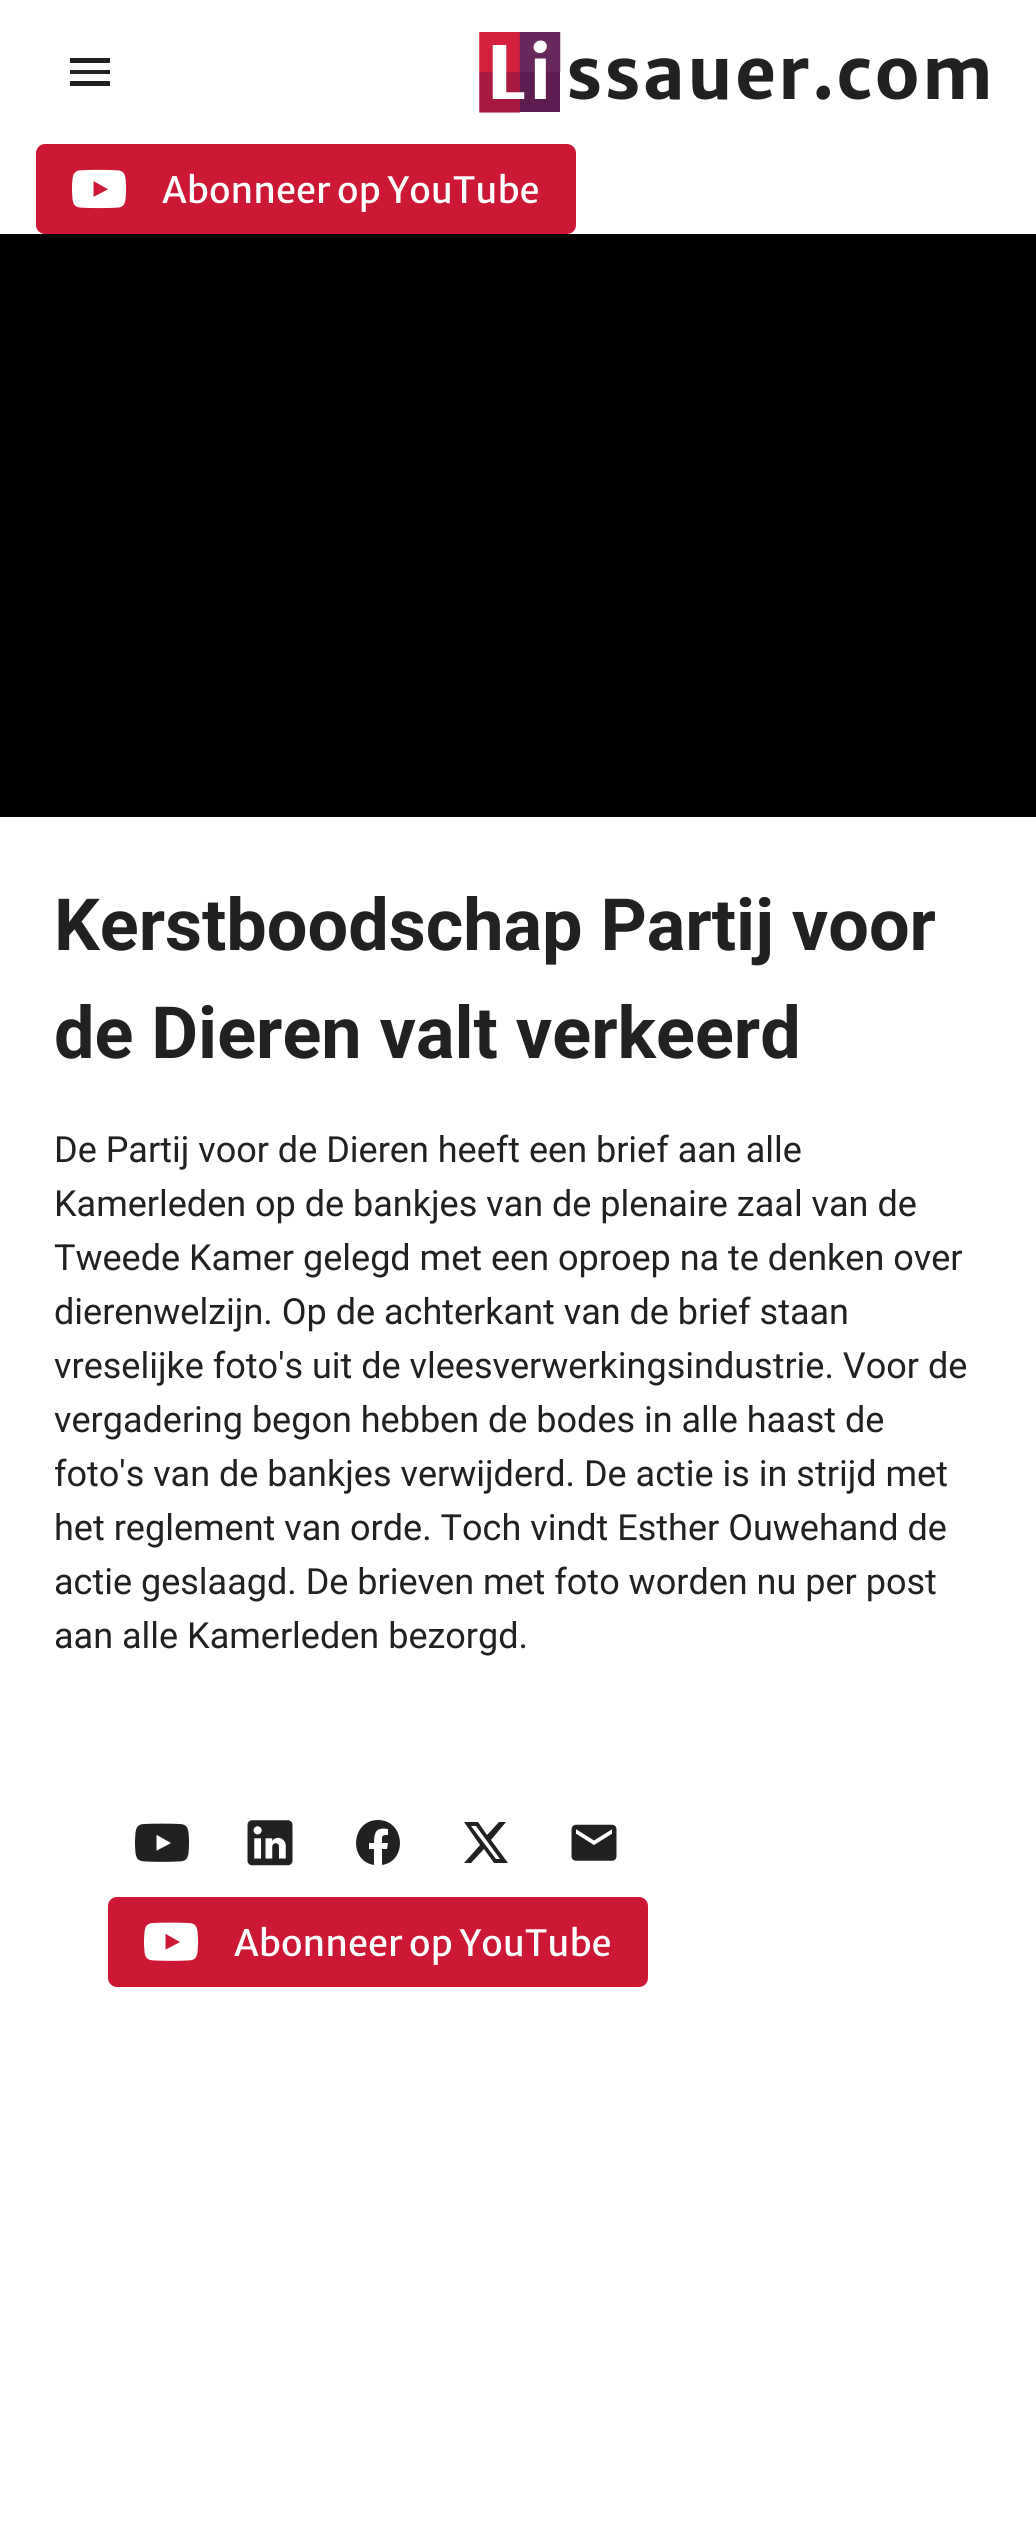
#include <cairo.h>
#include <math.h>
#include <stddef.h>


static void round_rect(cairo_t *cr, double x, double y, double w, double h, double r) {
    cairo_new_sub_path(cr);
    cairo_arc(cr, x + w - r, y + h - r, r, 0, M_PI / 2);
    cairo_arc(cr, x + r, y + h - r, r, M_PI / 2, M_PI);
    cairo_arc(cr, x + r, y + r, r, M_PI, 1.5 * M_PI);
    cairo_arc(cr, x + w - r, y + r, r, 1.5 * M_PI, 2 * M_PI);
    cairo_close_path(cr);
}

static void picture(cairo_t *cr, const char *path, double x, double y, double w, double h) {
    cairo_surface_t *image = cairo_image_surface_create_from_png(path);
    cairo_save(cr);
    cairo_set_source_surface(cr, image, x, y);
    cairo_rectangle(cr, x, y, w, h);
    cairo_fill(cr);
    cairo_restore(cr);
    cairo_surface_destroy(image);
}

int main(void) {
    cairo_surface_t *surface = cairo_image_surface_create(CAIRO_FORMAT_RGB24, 1036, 2521);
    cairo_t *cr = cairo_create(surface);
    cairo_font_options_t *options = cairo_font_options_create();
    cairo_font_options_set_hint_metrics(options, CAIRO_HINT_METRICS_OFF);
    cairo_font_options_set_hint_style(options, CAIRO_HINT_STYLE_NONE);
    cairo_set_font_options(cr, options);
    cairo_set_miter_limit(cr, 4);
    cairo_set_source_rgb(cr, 1, 1, 1);
    cairo_paint(cr);
    cairo_set_source_rgb(cr, 0.129, 0.129, 0.129);
    cairo_new_path(cr);
    cairo_move_to(cr, 70, 86);
    cairo_line_to(cr, 110, 86);
    cairo_line_to(cr, 110, 81);
    cairo_line_to(cr, 70, 81);
    cairo_close_path(cr);
    cairo_move_to(cr, 70, 74);
    cairo_line_to(cr, 110, 74);
    cairo_line_to(cr, 110, 70);
    cairo_line_to(cr, 70, 70);
    cairo_close_path(cr);
    cairo_move_to(cr, 70, 58);
    cairo_line_to(cr, 70, 63);
    cairo_line_to(cr, 110, 63);
    cairo_line_to(cr, 110, 58);
    cairo_close_path(cr);
    cairo_fill(cr);
    picture(cr, "img1.png", 479, 32, 509, 81);
    cairo_set_source_rgb(cr, 0.804, 0.094, 0.208);
    round_rect(cr, 36, 144, 540, 90, 9);
    cairo_fill(cr);
    picture(cr, "img2.png", 72, 169, 54, 40);
    cairo_select_font_face(cr, "Merriweather Sans", CAIRO_FONT_SLANT_NORMAL, CAIRO_FONT_WEIGHT_NORMAL);
    cairo_set_font_size(cr, 36);
    cairo_set_source_rgb(cr, 1, 1, 1);
    cairo_move_to(cr, 162, 203);
    cairo_show_text(cr, "Abonneer op YouTube");
    cairo_set_source_rgb(cr, 0, 0, 0);
    cairo_rectangle(cr, 0, 234, 1036, 583);
    cairo_fill(cr);
    cairo_select_font_face(cr, "Roboto", CAIRO_FONT_SLANT_NORMAL, CAIRO_FONT_WEIGHT_BOLD);
    cairo_set_font_size(cr, 72);
    cairo_set_source_rgb(cr, 0.129, 0.129, 0.129);
    cairo_move_to(cr, 54, 950);
    cairo_show_text(cr, "Kerstboodschap Partij voor");
    cairo_move_to(cr, 54, 1058);
    cairo_show_text(cr, "de Dieren valt verkeerd");
    cairo_select_font_face(cr, "Roboto", CAIRO_FONT_SLANT_NORMAL, CAIRO_FONT_WEIGHT_NORMAL);
    cairo_set_font_size(cr, 36);
    cairo_move_to(cr, 54, 1162);
    cairo_show_text(cr, "De Partij voor de Dieren heeft een brief aan alle");
    cairo_move_to(cr, 54, 1216);
    cairo_show_text(cr, "Kamerleden op de bankjes van de plenaire zaal van de");
    cairo_move_to(cr, 54, 1270);
    cairo_show_text(cr, "Tweede Kamer gelegd met een oproep na te denken over");
    cairo_move_to(cr, 54, 1324);
    cairo_show_text(cr, "dierenwelzijn. Op de achterkant van de brief staan");
    cairo_move_to(cr, 54, 1378);
    cairo_show_text(cr, "vreselijke foto's uit de vleesverwerkingsindustrie. Voor de");
    cairo_move_to(cr, 54, 1432);
    cairo_show_text(cr, "vergadering begon hebben de bodes in alle haast de");
    cairo_move_to(cr, 54, 1486);
    cairo_show_text(cr, "foto's van de bankjes verwijderd. De actie is in strijd met");
    cairo_move_to(cr, 54, 1540);
    cairo_show_text(cr, "het reglement van orde. Toch vindt Esther Ouwehand de");
    cairo_move_to(cr, 54, 1594);
    cairo_show_text(cr, "actie geslaagd. De brieven met foto worden nu per post");
    cairo_move_to(cr, 54, 1648);
    cairo_show_text(cr, "aan alle Kamerleden bezorgd.");
    picture(cr, "img3.png", 135, 1823, 54, 39);
    picture(cr, "img4.png", 247, 1820, 46, 46);
    cairo_new_path(cr);
    cairo_move_to(cr, 378, 1820);
    cairo_curve_to(cr, 351, 1820, 348, 1861, 374, 1865);
    cairo_line_to(cr, 374, 1849);
    cairo_line_to(cr, 369, 1849);
    cairo_line_to(cr, 369, 1843);
    cairo_line_to(cr, 374, 1843);
    cairo_curve_to(cr, 374, 1832, 376, 1827, 388, 1829);
    cairo_line_to(cr, 388, 1835);
    cairo_curve_to(cr, 381, 1835, 382, 1836, 382, 1843);
    cairo_line_to(cr, 388, 1843);
    cairo_line_to(cr, 387, 1849);
    cairo_line_to(cr, 382, 1849);
    cairo_line_to(cr, 382, 1865);
    cairo_curve_to(cr, 408, 1861, 405, 1820, 378, 1820);
    cairo_close_path(cr);
    cairo_fill(cr);
    cairo_new_path(cr);
    cairo_move_to(cr, 499, 1822);
    cairo_line_to(cr, 506, 1822);
    cairo_line_to(cr, 491, 1840);
    cairo_line_to(cr, 508, 1863);
    cairo_line_to(cr, 494, 1863);
    cairo_line_to(cr, 484, 1849);
    cairo_line_to(cr, 471, 1863);
    cairo_line_to(cr, 464, 1863);
    cairo_line_to(cr, 480, 1845);
    cairo_line_to(cr, 464, 1822);
    cairo_line_to(cr, 478, 1822);
    cairo_line_to(cr, 487, 1835);
    cairo_close_path(cr);
    cairo_move_to(cr, 496, 1859);
    cairo_line_to(cr, 500, 1859);
    cairo_line_to(cr, 476, 1826);
    cairo_line_to(cr, 471, 1826);
    cairo_close_path(cr);
    cairo_fill(cr);
    picture(cr, "img5.png", 571, 1824, 46, 37);
    cairo_set_source_rgb(cr, 0.804, 0.094, 0.208);
    round_rect(cr, 108, 1897, 540, 90, 9);
    cairo_fill(cr);
    picture(cr, "img6.png", 144, 1922, 54, 39);
    cairo_select_font_face(cr, "Merriweather Sans", CAIRO_FONT_SLANT_NORMAL, CAIRO_FONT_WEIGHT_NORMAL);
    cairo_set_source_rgb(cr, 1, 1, 1);
    cairo_move_to(cr, 234, 1956);
    cairo_show_text(cr, "Abonneer op YouTube");
    cairo_surface_write_to_png(surface, "page.png");
    cairo_font_options_destroy(options);
    cairo_destroy(cr);
    cairo_surface_destroy(surface);
    return 0;
}
